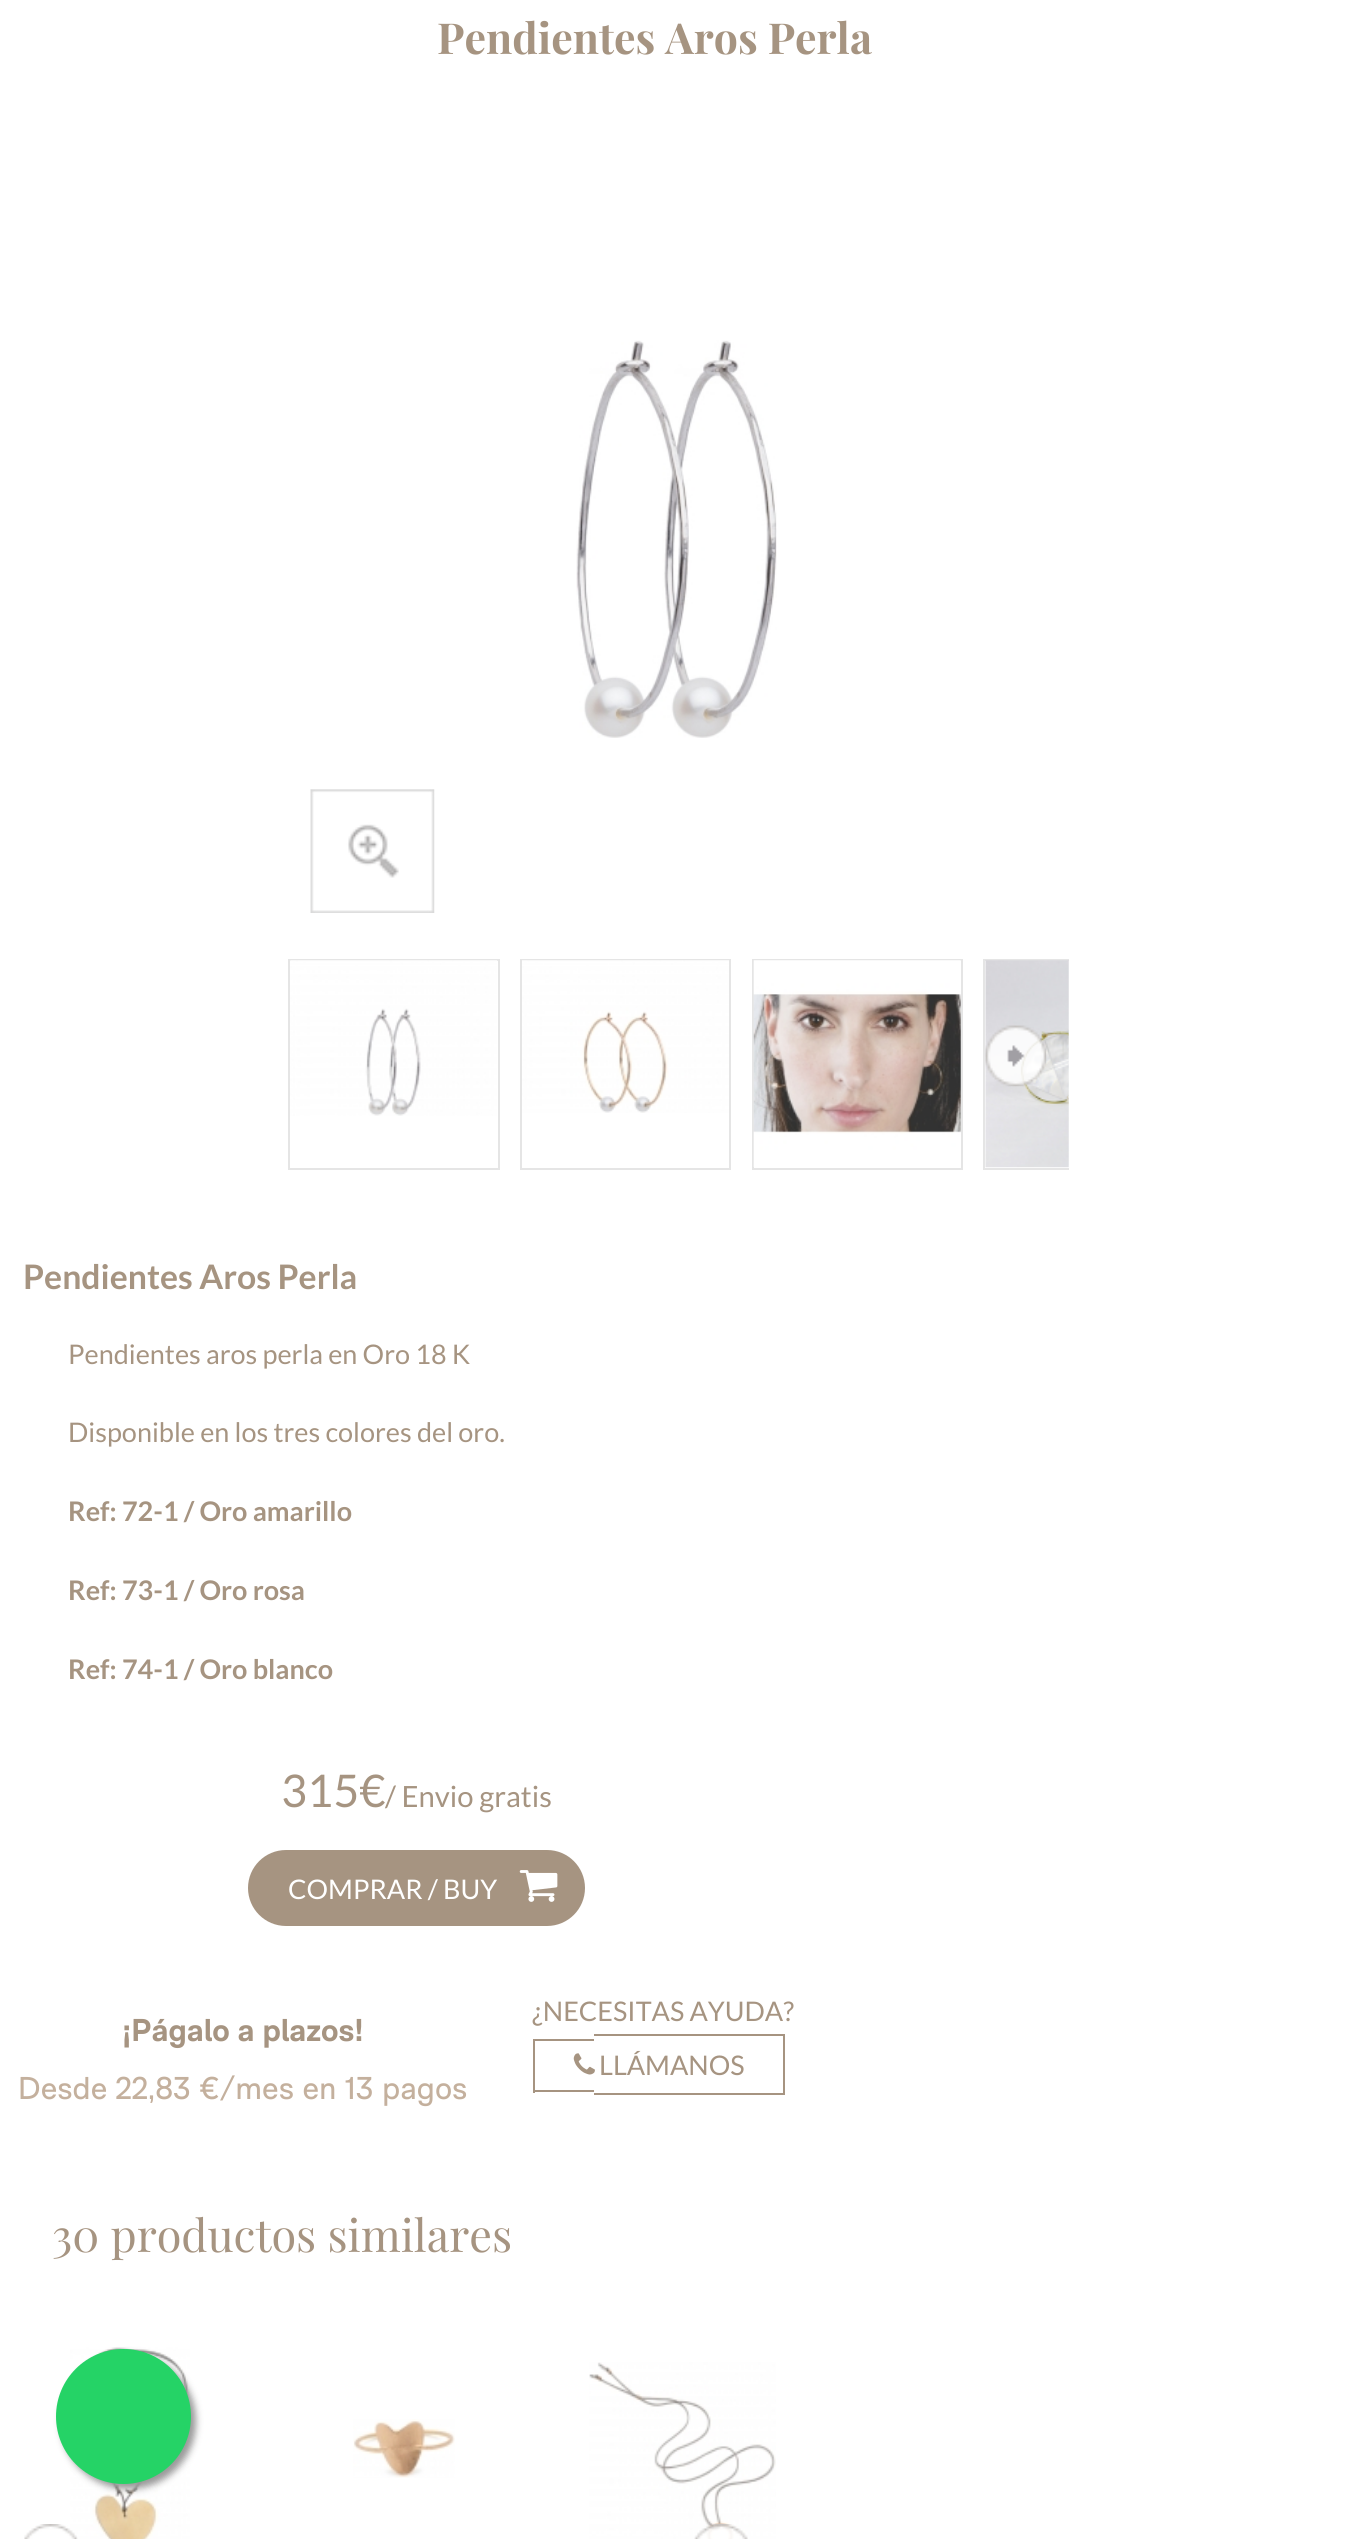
#include <cairo.h>
#include <math.h>
#include <stddef.h>


static void round_rect(cairo_t *cr, double x, double y, double w, double h, double r) {
    cairo_new_sub_path(cr);
    cairo_arc(cr, x + w - r, y + h - r, r, 0, M_PI / 2);
    cairo_arc(cr, x + r, y + h - r, r, M_PI / 2, M_PI);
    cairo_arc(cr, x + r, y + r, r, M_PI, 1.5 * M_PI);
    cairo_arc(cr, x + w - r, y + r, r, 1.5 * M_PI, 2 * M_PI);
    cairo_close_path(cr);
}

static void shadow(cairo_t *cr, double x, double y, double w, double h, double r, double blur, double alpha) {
    cairo_push_group_with_content(cr, CAIRO_CONTENT_ALPHA);
    cairo_set_operator(cr, CAIRO_OPERATOR_SOURCE);
    for (int i = 15; i >= -15 && fmin(w, h) + blur * i / 3 > 0; i -= 2) {
        double e = blur * i / 6;
        cairo_set_source_rgba(cr, 0, 0, 0, alpha * erfc((i - 1) / 8.5) / 2);
        round_rect(cr, x - e, y - e, w + 2 * e, h + 2 * e, fmax(0, fmin(r + e + blur * .6, fmin(w, h) / 2 + e)));
        cairo_fill(cr);
    }
    cairo_pattern_t *soft = cairo_pop_group(cr);
    cairo_mask(cr, soft);
    cairo_pattern_destroy(soft);
}

static void picture(cairo_t *cr, const char *path, double x, double y, double w, double h) {
    cairo_surface_t *image = cairo_image_surface_create_from_png(path);
    cairo_save(cr);
    cairo_set_source_surface(cr, image, x, y);
    cairo_rectangle(cr, x, y, w, h);
    cairo_fill(cr);
    cairo_restore(cr);
    cairo_surface_destroy(image);
}

int main(void) {
    cairo_surface_t *surface = cairo_image_surface_create(CAIRO_FORMAT_RGB24, 1353, 2539);
    cairo_t *cr = cairo_create(surface);
    cairo_font_options_t *options = cairo_font_options_create();
    cairo_font_options_set_hint_metrics(options, CAIRO_HINT_METRICS_OFF);
    cairo_font_options_set_hint_style(options, CAIRO_HINT_STYLE_NONE);
    cairo_set_font_options(cr, options);
    cairo_set_miter_limit(cr, 4);
    cairo_set_source_rgb(cr, 1, 1, 1);
    cairo_paint(cr);
    cairo_select_font_face(cr, "Playfair Display", CAIRO_FONT_SLANT_NORMAL, CAIRO_FONT_WEIGHT_BOLD);
    cairo_set_font_size(cr, 42.75);
    cairo_set_source_rgb(cr, 0.651, 0.58, 0.506);
    cairo_move_to(cr, 437, 54);
    cairo_show_text(cr, "Pendientes Aros Perla");
    cairo_select_font_face(cr, "Lato", CAIRO_FONT_SLANT_NORMAL, CAIRO_FONT_WEIGHT_BOLD);
    cairo_set_font_size(cr, 33.75);
    cairo_move_to(cr, 23, 1289);
    cairo_show_text(cr, "Pendientes Aros Perla");
    cairo_select_font_face(cr, "Lato", CAIRO_FONT_SLANT_NORMAL, CAIRO_FONT_WEIGHT_NORMAL);
    cairo_set_font_size(cr, 27);
    cairo_move_to(cr, 68, 1364);
    cairo_show_text(cr, "Pendientes aros perla en Oro 18 K");
    cairo_move_to(cr, 68, 1442);
    cairo_show_text(cr, "Disponible en los tres colores del oro.");
    cairo_select_font_face(cr, "Lato", CAIRO_FONT_SLANT_NORMAL, CAIRO_FONT_WEIGHT_BOLD);
    cairo_move_to(cr, 68, 1521);
    cairo_show_text(cr, "Ref: 72-1 / Oro amarillo");
    cairo_move_to(cr, 68, 1600);
    cairo_show_text(cr, "Ref: 73-1 / Oro rosa");
    cairo_move_to(cr, 68, 1679);
    cairo_show_text(cr, "Ref: 74-1 / Oro blanco");
    cairo_select_font_face(cr, "Lato", CAIRO_FONT_SLANT_NORMAL, CAIRO_FONT_WEIGHT_NORMAL);
    cairo_set_font_size(cr, 45);
    cairo_move_to(cr, 281, 1807);
    cairo_show_text(cr, "315€");
    cairo_set_font_size(cr, 29.25);
    cairo_move_to(cr, 385, 1807);
    cairo_show_text(cr, "/ Envio gratis");
    round_rect(cr, 248, 1850, 337, 76, 38);
    cairo_fill(cr);
    cairo_set_font_size(cr, 27);
    cairo_set_source_rgb(cr, 1, 1, 1);
    cairo_move_to(cr, 288, 1899);
    cairo_show_text(cr, "COMPRAR / BUY");
    picture(cr, "img1.png", 519, 1870, 39, 32);
    cairo_select_font_face(cr, "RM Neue", CAIRO_FONT_SLANT_NORMAL, CAIRO_FONT_WEIGHT_BOLD);
    cairo_set_font_size(cr, 31.5);
    cairo_set_source_rgb(cr, 0.651, 0.58, 0.506);
    cairo_move_to(cr, 122, 2041);
    cairo_show_text(cr, "¡Págalo a plazos!");
    cairo_select_font_face(cr, "RM Neue", CAIRO_FONT_SLANT_NORMAL, CAIRO_FONT_WEIGHT_NORMAL);
    cairo_set_source_rgb(cr, 0.769, 0.69, 0.616);
    cairo_move_to(cr, 18, 2099);
    cairo_show_text(cr, "Desde 22,83 €/mes en 13 pagos");
    cairo_select_font_face(cr, "Lato", CAIRO_FONT_SLANT_NORMAL, CAIRO_FONT_WEIGHT_NORMAL);
    cairo_set_font_size(cr, 27);
    cairo_set_source_rgb(cr, 0.651, 0.58, 0.506);
    cairo_move_to(cr, 532, 2021);
    cairo_show_text(cr, "¿NECESITAS AYUDA?");
    cairo_rectangle(cr, 533, 2039, 61, 2);
    cairo_fill(cr);
    cairo_rectangle(cr, 533, 2090, 61, 2);
    cairo_fill(cr);
    cairo_rectangle(cr, 533, 2039, 2, 54);
    cairo_fill(cr);
    cairo_rectangle(cr, 594, 2034, 191, 2);
    cairo_fill(cr);
    cairo_rectangle(cr, 783, 2034, 2, 61);
    cairo_fill(cr);
    cairo_rectangle(cr, 594, 2093, 191, 2);
    cairo_fill(cr);
    picture(cr, "img2.png", 573, 2053, 22, 22);
    cairo_move_to(cr, 599, 2075);
    cairo_show_text(cr, "LLÁMANOS");
    picture(cr, "img3.png", 576, 340, 201, 398);
    picture(cr, "img4.png", 310, 789, 125, 124);
    cairo_rectangle(cr, 289, 960, 210, 209);
    cairo_set_source_rgb(cr, 0.898, 0.898, 0.898);
    cairo_stroke(cr);
    picture(cr, "img5.png", 290, 960, 208, 156);
    cairo_rectangle(cr, 521, 960, 209, 209);
    cairo_stroke(cr);
    picture(cr, "img6.png", 522, 960, 207, 153);
    cairo_rectangle(cr, 753, 960, 209, 209);
    cairo_stroke(cr);
    picture(cr, "img7.png", 753, 960, 208, 207);
    cairo_save(cr);
    cairo_rectangle(cr, 288, 959, 781, 211);
    cairo_clip(cr);
    cairo_rectangle(cr, 984, 960, 210, 209);
    cairo_stroke(cr);
    cairo_restore(cr);
    picture(cr, "img8.png", 985, 960, 84, 208);
    picture(cr, "img9.png", 985, 1025, 62, 62);
    cairo_select_font_face(cr, "Playfair Display", CAIRO_FONT_SLANT_NORMAL, CAIRO_FONT_WEIGHT_NORMAL);
    cairo_set_font_size(cr, 45);
    cairo_set_source_rgb(cr, 0.651, 0.58, 0.506);
    cairo_move_to(cr, 52, 2252);
    cairo_show_text(cr, "30 productos similares");
    picture(cr, "img11.png", 70, 2347, 120, 192);
    picture(cr, "img10.png", 24, 2524, 54, 15);
    picture(cr, "img12.png", 353, 2419, 102, 59);
    picture(cr, "img13.png", 589, 2362, 187, 177);
    picture(cr, "img14.png", 694, 2524, 54, 15);
    cairo_set_source_rgb(cr, 0.6, 0.6, 0.6);
    shadow(cr, 61, 2354, 135, 135, 67.5, 3.5, 1);
    cairo_set_source_rgb(cr, 0.145, 0.827, 0.4);
    cairo_arc(cr, 123.5, 2416.5, 67.5, 0, 2 * M_PI);
    cairo_fill(cr);
    cairo_surface_write_to_png(surface, "page.png");
    cairo_font_options_destroy(options);
    cairo_destroy(cr);
    cairo_surface_destroy(surface);
    return 0;
}
